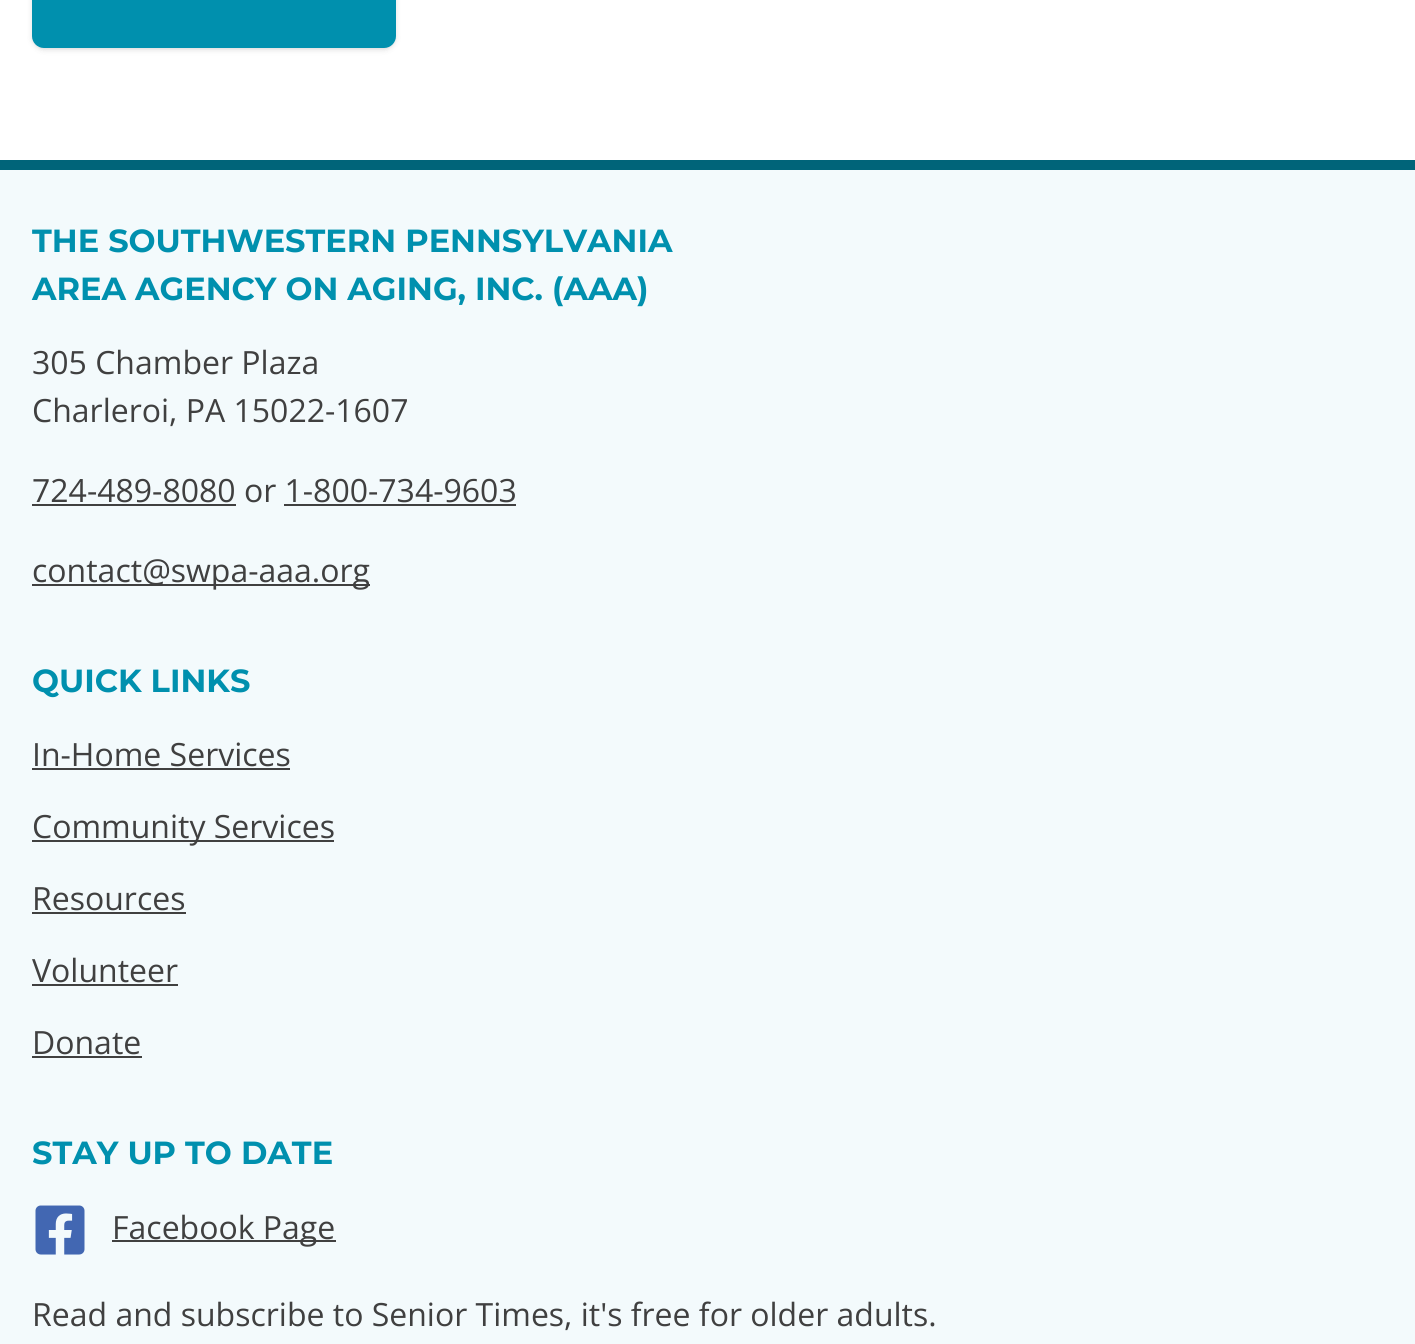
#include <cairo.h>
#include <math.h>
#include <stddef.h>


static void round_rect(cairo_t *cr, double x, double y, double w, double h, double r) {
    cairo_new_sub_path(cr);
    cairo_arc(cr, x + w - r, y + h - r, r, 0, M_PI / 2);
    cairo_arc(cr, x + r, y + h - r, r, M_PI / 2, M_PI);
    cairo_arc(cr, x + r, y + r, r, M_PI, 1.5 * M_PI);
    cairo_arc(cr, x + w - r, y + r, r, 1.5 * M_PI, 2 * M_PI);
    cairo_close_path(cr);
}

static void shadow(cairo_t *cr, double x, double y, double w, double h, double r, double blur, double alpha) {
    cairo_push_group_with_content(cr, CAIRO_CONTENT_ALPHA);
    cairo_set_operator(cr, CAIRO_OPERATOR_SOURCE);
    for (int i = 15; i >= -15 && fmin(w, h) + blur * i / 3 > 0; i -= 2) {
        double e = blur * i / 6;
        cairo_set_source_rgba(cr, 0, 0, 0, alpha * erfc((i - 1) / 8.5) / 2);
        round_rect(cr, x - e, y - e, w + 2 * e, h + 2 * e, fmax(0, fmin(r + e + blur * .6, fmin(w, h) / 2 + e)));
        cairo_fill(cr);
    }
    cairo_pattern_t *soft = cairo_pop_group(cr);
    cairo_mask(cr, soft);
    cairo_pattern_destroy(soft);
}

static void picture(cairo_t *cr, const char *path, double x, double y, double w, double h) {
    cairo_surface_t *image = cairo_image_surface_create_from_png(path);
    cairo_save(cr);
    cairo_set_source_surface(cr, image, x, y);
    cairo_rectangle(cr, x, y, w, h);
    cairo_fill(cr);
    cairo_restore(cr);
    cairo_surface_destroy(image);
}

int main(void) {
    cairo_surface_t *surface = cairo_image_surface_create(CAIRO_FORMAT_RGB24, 1415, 1344);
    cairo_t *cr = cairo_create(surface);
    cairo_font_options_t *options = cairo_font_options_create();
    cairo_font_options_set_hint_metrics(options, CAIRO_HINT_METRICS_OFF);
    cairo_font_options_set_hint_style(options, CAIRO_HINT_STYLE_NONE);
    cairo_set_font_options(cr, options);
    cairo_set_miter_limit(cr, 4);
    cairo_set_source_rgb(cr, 1, 1, 1);
    cairo_paint(cr);
    cairo_set_source_rgb(cr, 0, 0, 0);
    shadow(cr, 34, -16, 360, 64, 10, 2, 0.1);
    shadow(cr, 32, -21, 364, 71, 12, 3, 0.1);
    cairo_set_source_rgb(cr, 0, 0.565, 0.682);
    round_rect(cr, 32, -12, 364, 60, 12);
    cairo_fill(cr);
    cairo_set_source_rgb(cr, 0.953, 0.98, 0.988);
    cairo_rectangle(cr, 0, 170, 1415, 1174);
    cairo_fill(cr);
    cairo_set_source_rgb(cr, 0, 0.392, 0.475);
    cairo_rectangle(cr, 0, 160, 1415, 10);
    cairo_fill(cr);
    cairo_select_font_face(cr, "Montserrat", CAIRO_FONT_SLANT_NORMAL, CAIRO_FONT_WEIGHT_BOLD);
    cairo_set_font_size(cr, 32);
    cairo_set_source_rgb(cr, 0, 0.565, 0.682);
    cairo_move_to(cr, 32, 252);
    cairo_show_text(cr, "THE SOUTHWESTERN PENNSYLVANIA");
    cairo_move_to(cr, 32, 300);
    cairo_show_text(cr, "AREA AGENCY ON AGING, INC. (AAA)");
    cairo_select_font_face(cr, "Open Sans", CAIRO_FONT_SLANT_NORMAL, CAIRO_FONT_WEIGHT_NORMAL);
    cairo_set_source_rgb(cr, 0.251, 0.251, 0.251);
    cairo_move_to(cr, 32, 374);
    cairo_show_text(cr, "305 Chamber Plaza");
    cairo_move_to(cr, 32, 422);
    cairo_show_text(cr, "Charleroi, PA 15022-1607");
    cairo_move_to(cr, 32, 502);
    cairo_show_text(cr, "724-489-8080 or 1-800-734-9603");
    cairo_rectangle(cr, 32, 504, 204, 2);
    cairo_fill(cr);
    cairo_rectangle(cr, 284, 504, 232, 2);
    cairo_fill(cr);
    cairo_rectangle(cr, 32, 584, 338, 2);
    cairo_fill(cr);
    cairo_move_to(cr, 32, 582);
    cairo_show_text(cr, "contact@swpa-aaa.org");
    cairo_select_font_face(cr, "Montserrat", CAIRO_FONT_SLANT_NORMAL, CAIRO_FONT_WEIGHT_BOLD);
    cairo_set_source_rgb(cr, 0, 0.565, 0.682);
    cairo_move_to(cr, 32, 692);
    cairo_show_text(cr, "QUICK LINKS");
    cairo_select_font_face(cr, "Open Sans", CAIRO_FONT_SLANT_NORMAL, CAIRO_FONT_WEIGHT_NORMAL);
    cairo_set_source_rgb(cr, 0.251, 0.251, 0.251);
    cairo_move_to(cr, 32, 766);
    cairo_show_text(cr, "In-Home Services");
    cairo_rectangle(cr, 32, 768, 258, 2);
    cairo_fill(cr);
    cairo_rectangle(cr, 32, 840, 302, 2);
    cairo_fill(cr);
    cairo_move_to(cr, 32, 838);
    cairo_show_text(cr, "Community Services");
    cairo_move_to(cr, 32, 910);
    cairo_show_text(cr, "Resources");
    cairo_rectangle(cr, 32, 912, 154, 2);
    cairo_fill(cr);
    cairo_move_to(cr, 32, 982);
    cairo_show_text(cr, "Volunteer");
    cairo_rectangle(cr, 32, 984, 146, 2);
    cairo_fill(cr);
    cairo_move_to(cr, 32, 1054);
    cairo_show_text(cr, "Donate");
    cairo_rectangle(cr, 32, 1056, 110, 2);
    cairo_fill(cr);
    cairo_select_font_face(cr, "Montserrat", CAIRO_FONT_SLANT_NORMAL, CAIRO_FONT_WEIGHT_BOLD);
    cairo_set_source_rgb(cr, 0, 0.565, 0.682);
    cairo_move_to(cr, 32, 1164);
    cairo_show_text(cr, "STAY UP TO DATE");
    picture(cr, "img1.png", 35, 1205, 50, 50);
    cairo_set_source_rgb(cr, 0.251, 0.251, 0.251);
    cairo_rectangle(cr, 112, 1240, 224, 2);
    cairo_fill(cr);
    cairo_select_font_face(cr, "Open Sans", CAIRO_FONT_SLANT_NORMAL, CAIRO_FONT_WEIGHT_NORMAL);
    cairo_move_to(cr, 112, 1239);
    cairo_show_text(cr, "Facebook Page");
    cairo_move_to(cr, 32, 1326);
    cairo_show_text(cr, "Read and subscribe to Senior Times, it's free for older adults.");
    cairo_surface_write_to_png(surface, "page.png");
    cairo_font_options_destroy(options);
    cairo_destroy(cr);
    cairo_surface_destroy(surface);
    return 0;
}
